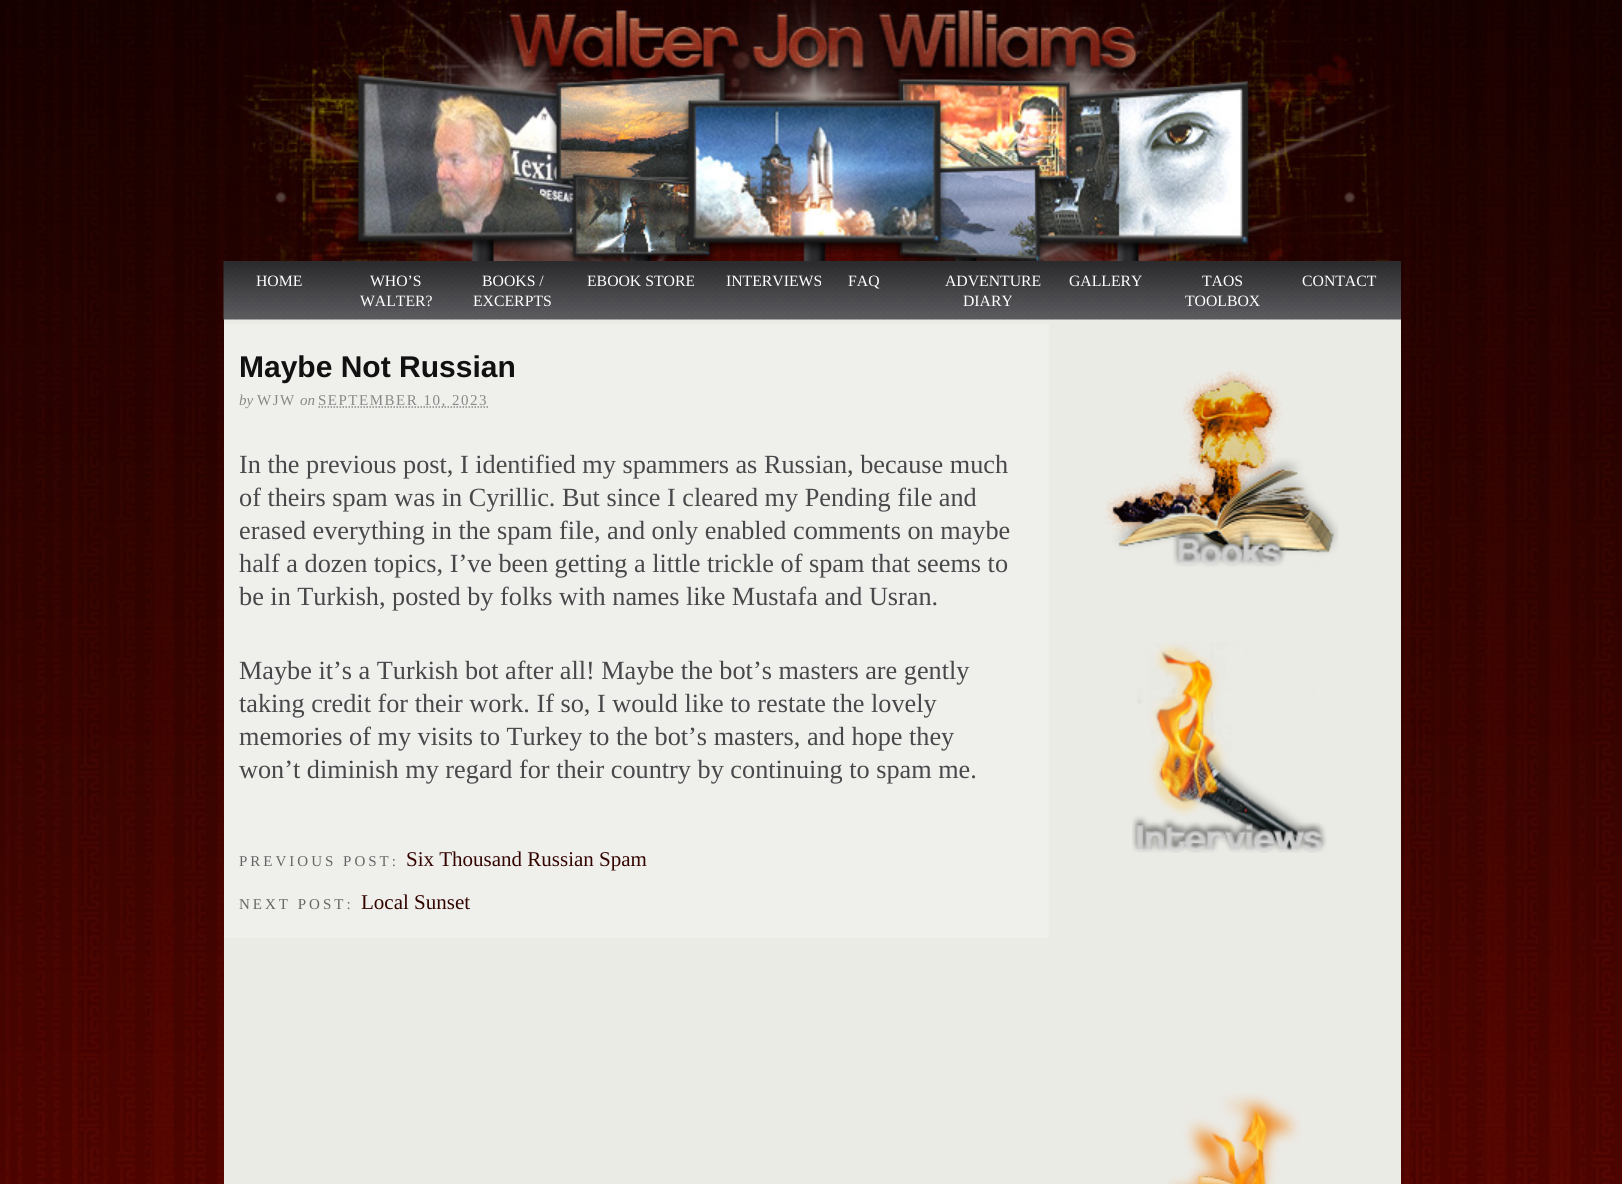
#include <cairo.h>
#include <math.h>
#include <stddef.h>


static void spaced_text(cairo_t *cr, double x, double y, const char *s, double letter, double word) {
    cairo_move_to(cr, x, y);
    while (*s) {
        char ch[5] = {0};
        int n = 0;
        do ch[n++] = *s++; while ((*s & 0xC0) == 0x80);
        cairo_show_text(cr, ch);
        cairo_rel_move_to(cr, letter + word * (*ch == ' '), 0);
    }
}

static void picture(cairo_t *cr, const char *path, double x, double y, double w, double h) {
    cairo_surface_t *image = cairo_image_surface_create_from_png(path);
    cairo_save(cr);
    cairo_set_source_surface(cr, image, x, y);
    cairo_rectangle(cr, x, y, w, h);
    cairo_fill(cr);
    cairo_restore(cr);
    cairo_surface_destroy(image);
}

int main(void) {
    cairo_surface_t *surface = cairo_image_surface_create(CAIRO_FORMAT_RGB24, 1622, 1184);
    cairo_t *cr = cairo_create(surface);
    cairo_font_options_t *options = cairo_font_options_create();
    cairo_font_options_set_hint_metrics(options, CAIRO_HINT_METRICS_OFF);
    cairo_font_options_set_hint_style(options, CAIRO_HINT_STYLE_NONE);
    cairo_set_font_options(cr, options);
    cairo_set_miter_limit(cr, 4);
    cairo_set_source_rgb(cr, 1, 1, 1);
    cairo_paint(cr);
    picture(cr, "img1.png", 0, 0, 1622, 1184);
    picture(cr, "img2.png", 223, 0, 1178, 261);
    cairo_set_source_rgb(cr, 0.918, 0.918, 0.902);
    cairo_rectangle(cr, 224, 319, 1177, 865);
    cairo_fill(cr);
    picture(cr, "img3.png", 223, 261, 1178, 59);
    cairo_select_font_face(cr, "Liberation Serif", CAIRO_FONT_SLANT_NORMAL, CAIRO_FONT_WEIGHT_NORMAL);
    cairo_set_font_size(cr, 15.75);
    cairo_set_source_rgb(cr, 1, 1, 1);
    cairo_move_to(cr, 256, 286);
    cairo_show_text(cr, "HOME");
    cairo_move_to(cr, 370, 286);
    cairo_show_text(cr, "WHO’S");
    cairo_move_to(cr, 360, 306);
    cairo_show_text(cr, "WALTER?");
    cairo_move_to(cr, 482, 286);
    cairo_show_text(cr, "BOOKS /");
    cairo_move_to(cr, 473, 306);
    cairo_show_text(cr, "EXCERPTS");
    cairo_move_to(cr, 587, 286);
    cairo_show_text(cr, "EBOOK STORE");
    cairo_move_to(cr, 726, 286);
    cairo_show_text(cr, "INTERVIEWS");
    cairo_move_to(cr, 848, 286);
    cairo_show_text(cr, "FAQ");
    cairo_move_to(cr, 945, 286);
    cairo_show_text(cr, "ADVENTURE");
    cairo_move_to(cr, 963, 306);
    cairo_show_text(cr, "DIARY");
    cairo_move_to(cr, 1069, 286);
    cairo_show_text(cr, "GALLERY");
    cairo_move_to(cr, 1202, 286);
    cairo_show_text(cr, "TAOS");
    cairo_move_to(cr, 1185, 306);
    cairo_show_text(cr, "TOOLBOX");
    cairo_move_to(cr, 1302, 286);
    cairo_show_text(cr, "CONTACT");
    cairo_set_source_rgb(cr, 0.937, 0.937, 0.922);
    cairo_rectangle(cr, 224, 324, 825, 614);
    cairo_fill(cr);
    cairo_select_font_face(cr, "Liberation Sans", CAIRO_FONT_SLANT_NORMAL, CAIRO_FONT_WEIGHT_BOLD);
    cairo_set_font_size(cr, 30);
    cairo_set_source_rgb(cr, 0.067, 0.067, 0.067);
    cairo_move_to(cr, 239, 377);
    cairo_show_text(cr, "Maybe Not Russian");
    cairo_select_font_face(cr, "Liberation Serif", CAIRO_FONT_SLANT_ITALIC, CAIRO_FONT_WEIGHT_NORMAL);
    cairo_set_font_size(cr, 15);
    cairo_set_source_rgb(cr, 0.533, 0.533, 0.533);
    cairo_move_to(cr, 239, 405);
    cairo_show_text(cr, "by");
    cairo_select_font_face(cr, "Liberation Serif", CAIRO_FONT_SLANT_NORMAL, CAIRO_FONT_WEIGHT_NORMAL);
    spaced_text(cr, 257, 405, "WJW", 1.5, 0);
    cairo_select_font_face(cr, "Liberation Serif", CAIRO_FONT_SLANT_ITALIC, CAIRO_FONT_WEIGHT_NORMAL);
    cairo_move_to(cr, 300, 405);
    cairo_show_text(cr, "on");
    cairo_new_path(cr);
    cairo_move_to(cr, 318.5, 407);
    cairo_line_to(cr, 488.5, 407);
    cairo_set_line_width(cr, 1.5);
    cairo_set_dash(cr, (double[]){1.5, 1.5}, 2, 0);
    cairo_stroke(cr);
    cairo_select_font_face(cr, "Liberation Serif", CAIRO_FONT_SLANT_NORMAL, CAIRO_FONT_WEIGHT_NORMAL);
    spaced_text(cr, 318, 405, "SEPTEMBER 10, 2023", 1.5, 0);
    cairo_set_font_size(cr, 26.25);
    cairo_set_source_rgb(cr, 0.282, 0.282, 0.294);
    cairo_move_to(cr, 239, 473);
    cairo_show_text(cr, "In the previous post, I identified my spammers as Russian, because much");
    cairo_move_to(cr, 239, 506);
    cairo_show_text(cr, "of theirs spam was in Cyrillic. But since I cleared my Pending file and");
    cairo_move_to(cr, 239, 539);
    cairo_show_text(cr, "erased everything in the spam file, and only enabled comments on maybe");
    cairo_move_to(cr, 239, 572);
    cairo_show_text(cr, "half a dozen topics, I’ve been getting a little trickle of spam that seems to");
    cairo_move_to(cr, 239, 605);
    cairo_show_text(cr, "be in Turkish, posted by folks with names like Mustafa and Usran.");
    cairo_move_to(cr, 239, 679);
    cairo_show_text(cr, "Maybe it’s a Turkish bot after all! Maybe the bot’s masters are gently");
    cairo_move_to(cr, 239, 712);
    cairo_show_text(cr, "taking credit for their work. If so, I would like to restate the lovely");
    cairo_move_to(cr, 239, 745);
    cairo_show_text(cr, "memories of my visits to Turkey to the bot’s masters, and hope they");
    cairo_move_to(cr, 239, 778);
    cairo_show_text(cr, "won’t diminish my regard for their country by continuing to spam me.");
    cairo_set_font_size(cr, 15);
    cairo_set_source_rgb(cr, 0.4, 0.4, 0.4);
    spaced_text(cr, 239, 866, "PREVIOUS POST:", 3, 0);
    cairo_set_font_size(cr, 21);
    cairo_set_source_rgb(cr, 0.2, 0.012, 0);
    cairo_move_to(cr, 406, 866);
    cairo_show_text(cr, "Six Thousand Russian Spam");
    cairo_set_font_size(cr, 15);
    cairo_set_source_rgb(cr, 0.4, 0.4, 0.4);
    spaced_text(cr, 239, 909, "NEXT POST:", 3, 0);
    cairo_set_font_size(cr, 21);
    cairo_set_source_rgb(cr, 0.2, 0.012, 0);
    cairo_move_to(cr, 361, 909);
    cairo_show_text(cr, "Local Sunset");
    picture(cr, "img4.png", 1105, 370, 234, 197);
    picture(cr, "img5.png", 1132, 642, 195, 211);
    picture(cr, "img6.png", 1166, 1093, 135, 91);
    cairo_surface_write_to_png(surface, "page.png");
    cairo_font_options_destroy(options);
    cairo_destroy(cr);
    cairo_surface_destroy(surface);
    return 0;
}
